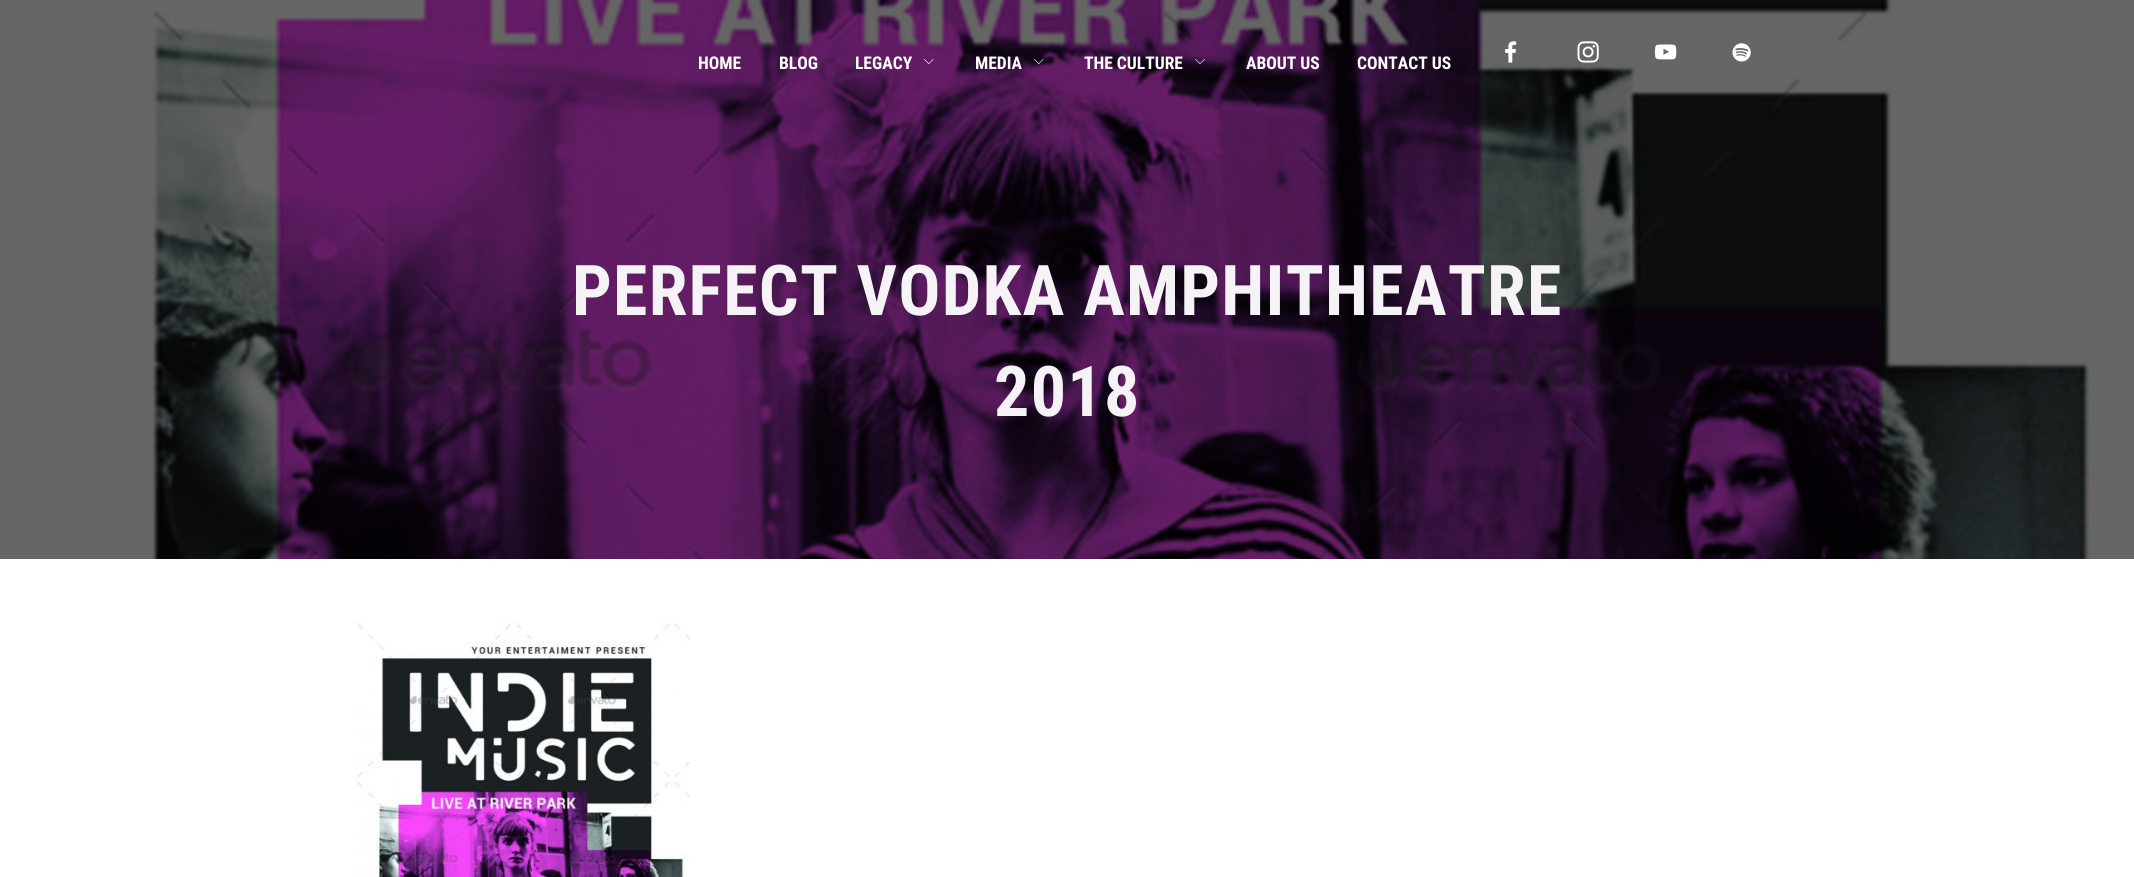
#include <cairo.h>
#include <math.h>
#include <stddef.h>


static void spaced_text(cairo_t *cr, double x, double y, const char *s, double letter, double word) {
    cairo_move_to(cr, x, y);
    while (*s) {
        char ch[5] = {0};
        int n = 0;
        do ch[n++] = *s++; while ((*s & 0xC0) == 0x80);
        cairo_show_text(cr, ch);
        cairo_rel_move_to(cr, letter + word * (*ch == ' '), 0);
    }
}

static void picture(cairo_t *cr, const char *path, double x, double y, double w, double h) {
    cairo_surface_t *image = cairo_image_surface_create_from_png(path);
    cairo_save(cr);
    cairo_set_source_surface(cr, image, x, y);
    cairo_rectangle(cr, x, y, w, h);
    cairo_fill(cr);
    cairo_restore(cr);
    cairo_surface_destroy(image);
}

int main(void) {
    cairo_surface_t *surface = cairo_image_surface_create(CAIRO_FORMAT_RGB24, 2134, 877);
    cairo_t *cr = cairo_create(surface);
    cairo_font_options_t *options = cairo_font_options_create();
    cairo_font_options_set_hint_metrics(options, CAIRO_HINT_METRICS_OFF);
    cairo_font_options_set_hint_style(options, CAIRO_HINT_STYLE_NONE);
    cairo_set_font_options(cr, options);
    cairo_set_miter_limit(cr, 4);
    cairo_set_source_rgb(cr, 1, 1, 1);
    cairo_paint(cr);
    picture(cr, "img8.png", 0, 0, 2134, 559);
    cairo_select_font_face(cr, "Roboto Condensed", CAIRO_FONT_SLANT_NORMAL, CAIRO_FONT_WEIGHT_BOLD);
    cairo_set_font_size(cr, 17.5);
    cairo_set_source_rgb(cr, 1, 1, 1);
    cairo_move_to(cr, 698, 69);
    cairo_show_text(cr, "HOME");
    cairo_move_to(cr, 779, 69);
    cairo_show_text(cr, "BLOG");
    cairo_move_to(cr, 855, 69);
    cairo_show_text(cr, "LEGACY");
    picture(cr, "img1.png", 924, 59, 10, 5);
    cairo_move_to(cr, 975, 69);
    cairo_show_text(cr, "MEDIA");
    picture(cr, "img2.png", 1034, 59, 10, 5);
    cairo_move_to(cr, 1084, 69);
    cairo_show_text(cr, "THE CULTURE");
    picture(cr, "img3.png", 1195, 59, 10, 5);
    cairo_move_to(cr, 1246, 69);
    cairo_show_text(cr, "ABOUT US");
    cairo_move_to(cr, 1357, 69);
    cairo_show_text(cr, "CONTACT US");
    picture(cr, "img4.png", 1505, 41, 12, 22);
    picture(cr, "img5.png", 1577, 41, 22, 22);
    picture(cr, "img6.png", 1655, 44, 22, 16);
    picture(cr, "img7.png", 1732, 43, 19, 19);
    cairo_set_font_size(cr, 70);
    cairo_set_source_rgb(cr, 0.961, 0.953, 0.965);
    spaced_text(cr, 572, 315, "PERFECT VODKA AMPHITHEATRE", 1.25, 0);
    spaced_text(cr, 994, 416, "2018", 1.25, 0);
    picture(cr, "img9.png", 355, 621, 335, 256);
    cairo_surface_write_to_png(surface, "page.png");
    cairo_font_options_destroy(options);
    cairo_destroy(cr);
    cairo_surface_destroy(surface);
    return 0;
}
